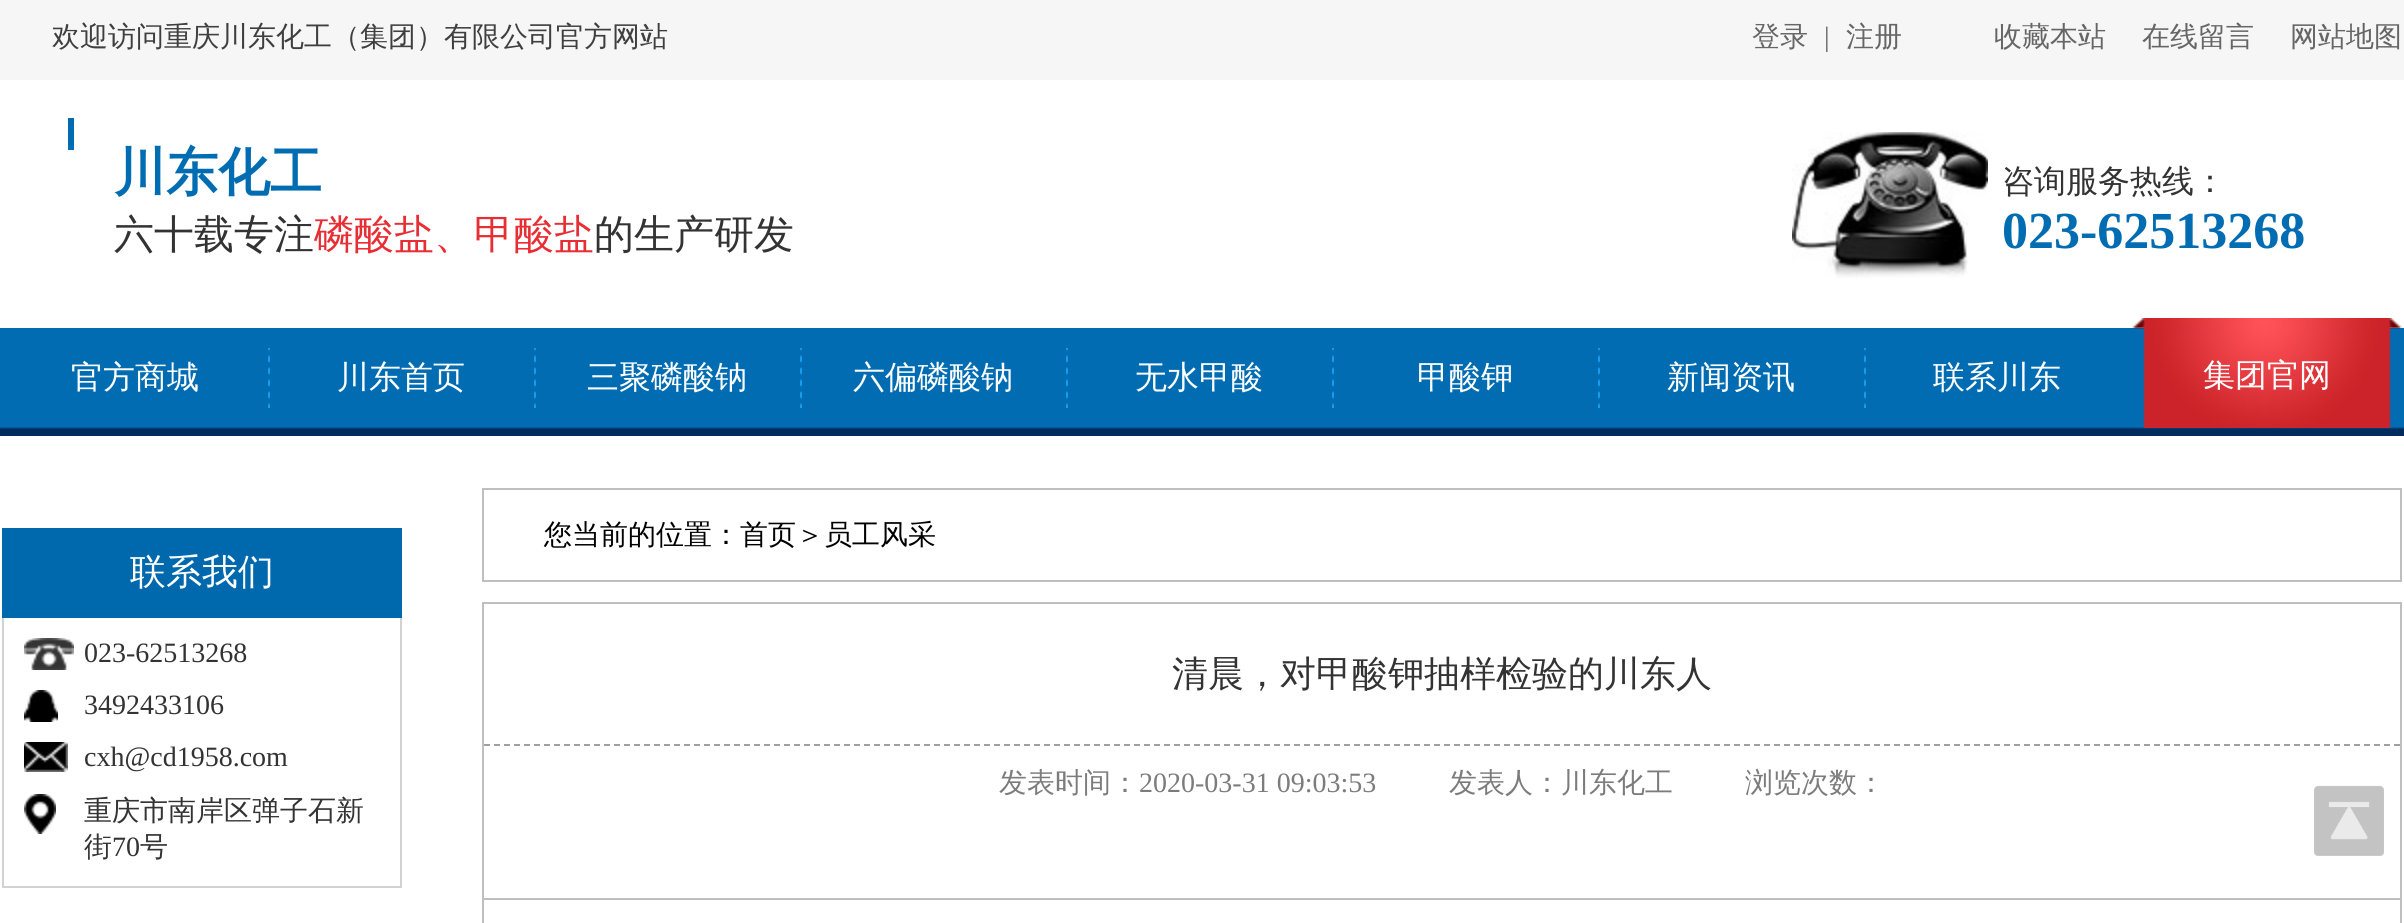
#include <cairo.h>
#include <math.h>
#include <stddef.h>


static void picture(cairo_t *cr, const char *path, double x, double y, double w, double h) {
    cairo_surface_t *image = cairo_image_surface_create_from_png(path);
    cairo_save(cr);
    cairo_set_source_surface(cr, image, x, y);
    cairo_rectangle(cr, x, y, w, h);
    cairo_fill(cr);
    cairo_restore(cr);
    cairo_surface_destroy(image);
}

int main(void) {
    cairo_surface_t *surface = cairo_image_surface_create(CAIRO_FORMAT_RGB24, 2404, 923);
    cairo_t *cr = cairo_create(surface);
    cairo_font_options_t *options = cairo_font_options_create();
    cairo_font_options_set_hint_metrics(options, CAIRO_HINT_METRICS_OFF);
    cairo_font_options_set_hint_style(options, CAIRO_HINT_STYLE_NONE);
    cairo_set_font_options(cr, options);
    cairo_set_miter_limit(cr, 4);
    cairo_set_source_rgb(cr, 1, 1, 1);
    cairo_paint(cr);
    cairo_set_source_rgb(cr, 0.961, 0.961, 0.961);
    cairo_rectangle(cr, 0, 0, 2404, 80);
    cairo_fill(cr);
    cairo_select_font_face(cr, "WenQuanYi Zen Hei Medium", CAIRO_FONT_SLANT_NORMAL, CAIRO_FONT_WEIGHT_NORMAL);
    cairo_set_font_size(cr, 28);
    cairo_set_source_rgb(cr, 0.247, 0.247, 0.247);
    cairo_move_to(cr, 52, 46);
    cairo_show_text(cr, "欢迎访问重庆川东化工（集团）有限公司官方网站");
    cairo_set_source_rgb(cr, 0.4, 0.4, 0.4);
    cairo_move_to(cr, 1752, 46);
    cairo_show_text(cr, "登录");
    cairo_select_font_face(cr, "Liberation Serif", CAIRO_FONT_SLANT_NORMAL, CAIRO_FONT_WEIGHT_NORMAL);
    cairo_move_to(cr, 1824, 46);
    cairo_show_text(cr, "|");
    cairo_select_font_face(cr, "WenQuanYi Zen Hei Medium", CAIRO_FONT_SLANT_NORMAL, CAIRO_FONT_WEIGHT_NORMAL);
    cairo_move_to(cr, 1846, 46);
    cairo_show_text(cr, "注册");
    cairo_move_to(cr, 1994, 46);
    cairo_show_text(cr, "收藏本站");
    cairo_move_to(cr, 2142, 46);
    cairo_show_text(cr, "在线留言");
    cairo_move_to(cr, 2290, 46);
    cairo_show_text(cr, "网站地图");
    picture(cr, "img1.png", 68, 118, 6, 32);
    cairo_select_font_face(cr, "WenQuanYi Zen Hei", CAIRO_FONT_SLANT_NORMAL, CAIRO_FONT_WEIGHT_BOLD);
    cairo_set_font_size(cr, 52);
    cairo_set_source_rgb(cr, 0, 0.424, 0.698);
    cairo_move_to(cr, 114, 190);
    cairo_show_text(cr, "川东化工");
    cairo_select_font_face(cr, "WenQuanYi Zen Hei Medium", CAIRO_FONT_SLANT_NORMAL, CAIRO_FONT_WEIGHT_NORMAL);
    cairo_set_font_size(cr, 40);
    cairo_set_source_rgb(cr, 0.2, 0.2, 0.2);
    cairo_move_to(cr, 114, 248);
    cairo_show_text(cr, "六十载专注");
    cairo_set_source_rgb(cr, 0.906, 0.18, 0.208);
    cairo_move_to(cr, 314, 248);
    cairo_show_text(cr, "磷酸盐、甲酸盐");
    cairo_set_source_rgb(cr, 0.2, 0.2, 0.2);
    cairo_move_to(cr, 594, 248);
    cairo_show_text(cr, "的生产研发");
    picture(cr, "img2.png", 1792, 132, 196, 146);
    cairo_set_font_size(cr, 32);
    cairo_move_to(cr, 2002, 192);
    cairo_show_text(cr, "咨询服务热线：");
    cairo_select_font_face(cr, "Liberation Serif", CAIRO_FONT_SLANT_NORMAL, CAIRO_FONT_WEIGHT_BOLD);
    cairo_set_font_size(cr, 52);
    cairo_set_source_rgb(cr, 0, 0.424, 0.698);
    cairo_move_to(cr, 2002, 248);
    cairo_show_text(cr, "023-62513268");
    picture(cr, "img3.png", 0, 328, 2404, 108);
    cairo_select_font_face(cr, "WenQuanYi Zen Hei Medium", CAIRO_FONT_SLANT_NORMAL, CAIRO_FONT_WEIGHT_NORMAL);
    cairo_set_font_size(cr, 32);
    cairo_set_source_rgb(cr, 1, 1, 1);
    cairo_move_to(cr, 71, 388);
    cairo_show_text(cr, "官方商城");
    picture(cr, "img4.png", 268, 348, 2, 60);
    cairo_move_to(cr, 337, 388);
    cairo_show_text(cr, "川东首页");
    picture(cr, "img4.png", 534, 348, 2, 60);
    cairo_move_to(cr, 587, 388);
    cairo_show_text(cr, "三聚磷酸钠");
    picture(cr, "img4.png", 800, 348, 2, 60);
    cairo_move_to(cr, 853, 388);
    cairo_show_text(cr, "六偏磷酸钠");
    picture(cr, "img4.png", 1066, 348, 2, 60);
    cairo_move_to(cr, 1135, 388);
    cairo_show_text(cr, "无水甲酸");
    picture(cr, "img4.png", 1332, 348, 2, 60);
    cairo_move_to(cr, 1417, 388);
    cairo_show_text(cr, "甲酸钾");
    picture(cr, "img4.png", 1598, 348, 2, 60);
    cairo_move_to(cr, 1667, 388);
    cairo_show_text(cr, "新闻资讯");
    picture(cr, "img4.png", 1864, 348, 2, 60);
    cairo_move_to(cr, 1933, 388);
    cairo_show_text(cr, "联系川东");
    picture(cr, "img5.png", 2132, 318, 270, 110);
    cairo_move_to(cr, 2203, 386);
    cairo_show_text(cr, "集团官网");
    cairo_set_source_rgb(cr, 0, 0.408, 0.675);
    cairo_rectangle(cr, 2, 528, 400, 90);
    cairo_fill(cr);
    cairo_set_font_size(cr, 36);
    cairo_set_source_rgb(cr, 1, 1, 1);
    cairo_move_to(cr, 130, 584);
    cairo_show_text(cr, "联系我们");
    cairo_set_source_rgb(cr, 0.824, 0.824, 0.824);
    cairo_rectangle(cr, 400, 618, 2, 270);
    cairo_fill(cr);
    cairo_rectangle(cr, 2, 886, 400, 2);
    cairo_fill(cr);
    cairo_rectangle(cr, 2, 618, 2, 270);
    cairo_fill(cr);
    picture(cr, "img6.png", 24, 638, 50, 32);
    cairo_select_font_face(cr, "Liberation Serif", CAIRO_FONT_SLANT_NORMAL, CAIRO_FONT_WEIGHT_NORMAL);
    cairo_set_font_size(cr, 28);
    cairo_set_source_rgb(cr, 0.2, 0.2, 0.2);
    cairo_move_to(cr, 84, 662);
    cairo_show_text(cr, "023-62513268");
    picture(cr, "img7.png", 24, 690, 34, 32);
    cairo_move_to(cr, 84, 714);
    cairo_show_text(cr, "3492433106");
    picture(cr, "img8.png", 24, 742, 44, 30);
    cairo_move_to(cr, 84, 766);
    cairo_show_text(cr, "cxh@cd1958.com");
    picture(cr, "img9.png", 24, 794, 32, 40);
    cairo_select_font_face(cr, "WenQuanYi Zen Hei Medium", CAIRO_FONT_SLANT_NORMAL, CAIRO_FONT_WEIGHT_NORMAL);
    cairo_move_to(cr, 84, 820);
    cairo_show_text(cr, "重庆市南岸区弹子石新");
    cairo_move_to(cr, 84, 856);
    cairo_show_text(cr, "街");
    cairo_select_font_face(cr, "Liberation Serif", CAIRO_FONT_SLANT_NORMAL, CAIRO_FONT_WEIGHT_NORMAL);
    cairo_move_to(cr, 112, 856);
    cairo_show_text(cr, "70");
    cairo_select_font_face(cr, "WenQuanYi Zen Hei Medium", CAIRO_FONT_SLANT_NORMAL, CAIRO_FONT_WEIGHT_NORMAL);
    cairo_move_to(cr, 140, 856);
    cairo_show_text(cr, "号");
    cairo_rectangle(cr, 483, 489, 1918, 92);
    cairo_set_source_rgb(cr, 0.749, 0.749, 0.749);
    cairo_stroke(cr);
    cairo_set_source_rgb(cr, 0, 0, 0);
    cairo_move_to(cr, 544, 544);
    cairo_show_text(cr, "您当前的位置：首页＞员工风采");
    cairo_rectangle(cr, 483, 603, 1918, 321);
    cairo_set_source_rgb(cr, 0.749, 0.749, 0.749);
    cairo_stroke(cr);
    cairo_new_path(cr);
    cairo_move_to(cr, 484, 745);
    cairo_line_to(cr, 2400, 745);
    cairo_set_source_rgb(cr, 0.627, 0.627, 0.627);
    cairo_set_dash(cr, (double[]){6, 4}, 2, 0);
    cairo_stroke(cr);
    cairo_set_font_size(cr, 36);
    cairo_set_source_rgb(cr, 0.2, 0.2, 0.2);
    cairo_move_to(cr, 1172, 686);
    cairo_show_text(cr, "清晨，对甲酸钾抽样检验的川东人");
    cairo_set_font_size(cr, 28);
    cairo_set_source_rgb(cr, 0.486, 0.486, 0.486);
    cairo_move_to(cr, 999, 792);
    cairo_show_text(cr, "发表时间：");
    cairo_select_font_face(cr, "Liberation Serif", CAIRO_FONT_SLANT_NORMAL, CAIRO_FONT_WEIGHT_NORMAL);
    cairo_move_to(cr, 1139, 792);
    cairo_show_text(cr, "2020-03-31 09:03:53");
    cairo_select_font_face(cr, "WenQuanYi Zen Hei Medium", CAIRO_FONT_SLANT_NORMAL, CAIRO_FONT_WEIGHT_NORMAL);
    cairo_move_to(cr, 1449, 792);
    cairo_show_text(cr, "发表人：川东化工");
    cairo_move_to(cr, 1745, 792);
    cairo_show_text(cr, "浏览次数：");
    cairo_set_source_rgb(cr, 0.749, 0.749, 0.749);
    cairo_rectangle(cr, 484, 898, 1916, 2);
    cairo_fill(cr);
    picture(cr, "img10.png", 2314, 785, 70, 71);
    cairo_surface_write_to_png(surface, "page.png");
    cairo_font_options_destroy(options);
    cairo_destroy(cr);
    cairo_surface_destroy(surface);
    return 0;
}
